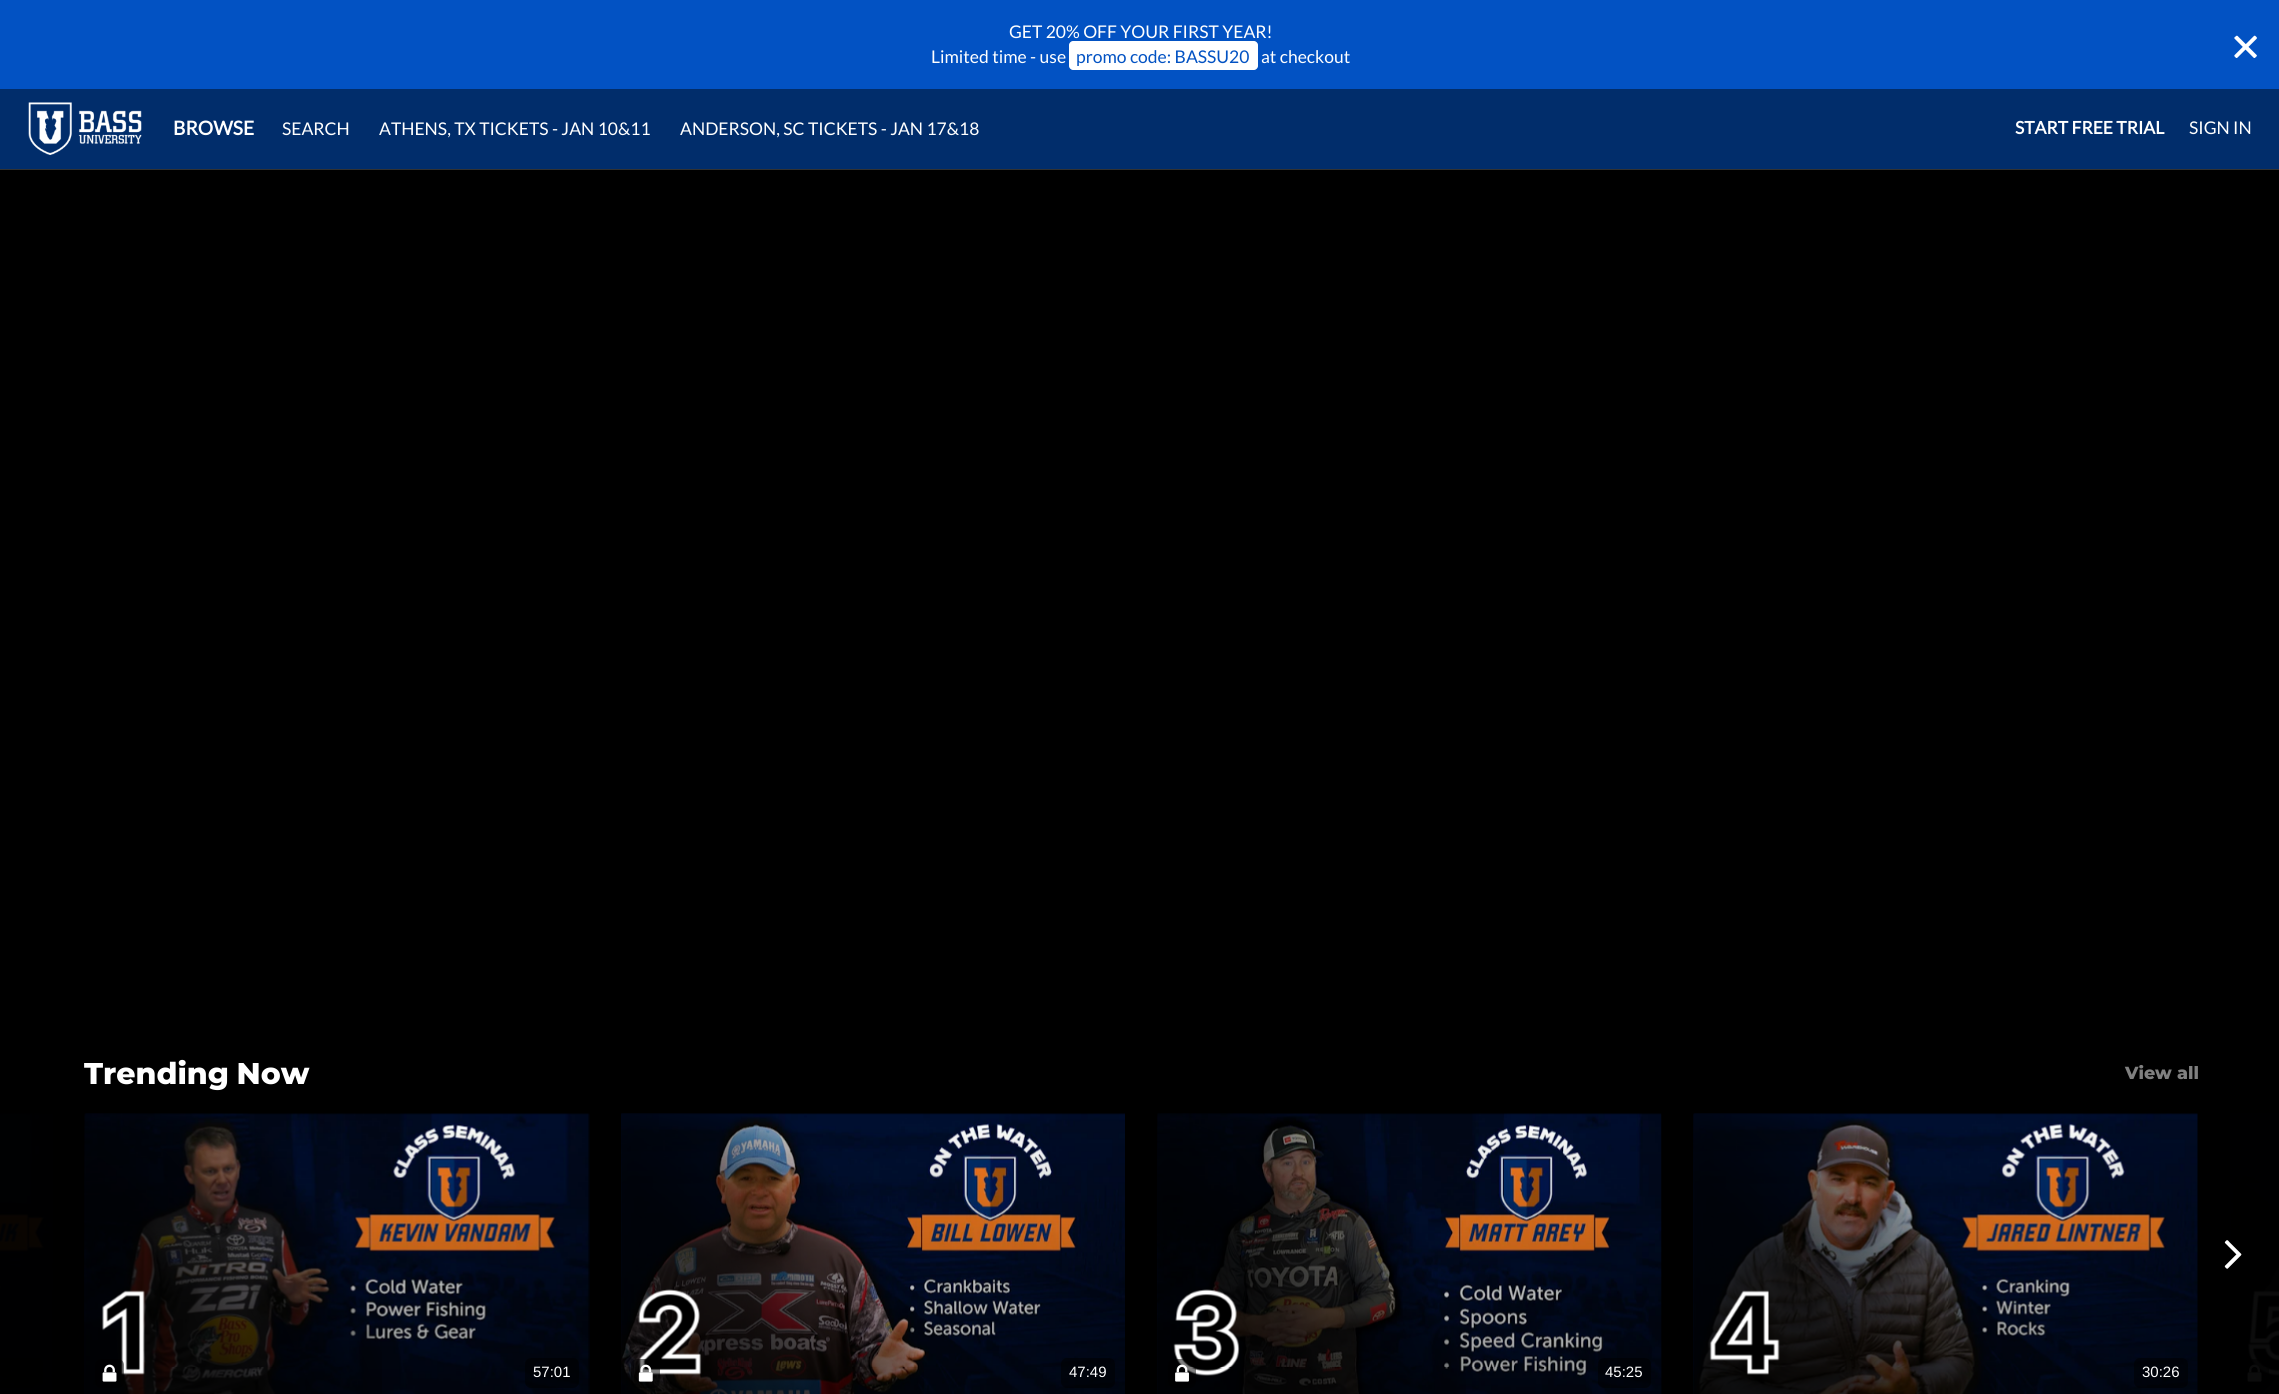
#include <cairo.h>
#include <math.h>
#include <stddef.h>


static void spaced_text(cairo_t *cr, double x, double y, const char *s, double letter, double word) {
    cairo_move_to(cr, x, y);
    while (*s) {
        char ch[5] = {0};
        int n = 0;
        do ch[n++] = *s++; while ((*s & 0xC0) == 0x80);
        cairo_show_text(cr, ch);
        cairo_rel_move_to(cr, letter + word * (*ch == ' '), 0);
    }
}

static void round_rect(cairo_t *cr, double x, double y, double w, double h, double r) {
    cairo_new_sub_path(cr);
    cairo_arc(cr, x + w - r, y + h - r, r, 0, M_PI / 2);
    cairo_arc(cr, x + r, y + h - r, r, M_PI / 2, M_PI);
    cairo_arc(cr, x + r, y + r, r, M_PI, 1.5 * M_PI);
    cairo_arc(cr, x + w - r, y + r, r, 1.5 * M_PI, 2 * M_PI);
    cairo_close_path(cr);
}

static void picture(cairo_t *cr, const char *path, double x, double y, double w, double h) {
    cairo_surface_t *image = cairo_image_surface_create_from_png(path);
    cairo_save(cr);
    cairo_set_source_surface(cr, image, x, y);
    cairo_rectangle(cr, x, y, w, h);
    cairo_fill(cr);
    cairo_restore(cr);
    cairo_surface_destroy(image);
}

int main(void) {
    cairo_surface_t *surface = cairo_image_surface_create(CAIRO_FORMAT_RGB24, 2279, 1394);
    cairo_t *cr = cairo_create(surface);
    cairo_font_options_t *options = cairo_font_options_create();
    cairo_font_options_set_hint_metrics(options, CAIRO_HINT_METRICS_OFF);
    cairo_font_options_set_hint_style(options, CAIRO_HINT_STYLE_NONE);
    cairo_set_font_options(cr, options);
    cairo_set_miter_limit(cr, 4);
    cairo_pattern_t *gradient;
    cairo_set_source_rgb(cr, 0, 0, 0);
    cairo_paint(cr);
    cairo_set_source_rgb(cr, 0.008, 0.322, 0.765);
    cairo_rectangle(cr, 0, 0, 2279, 89);
    cairo_fill(cr);
    cairo_select_font_face(cr, "Lato", CAIRO_FONT_SLANT_NORMAL, CAIRO_FONT_WEIGHT_NORMAL);
    cairo_set_font_size(cr, 17.5);
    cairo_set_source_rgb(cr, 1, 1, 1);
    cairo_move_to(cr, 1009, 38);
    cairo_show_text(cr, "GET 20% OFF YOUR FIRST YEAR!");
    cairo_move_to(cr, 931, 63);
    cairo_show_text(cr, "Limited time - use");
    cairo_new_path(cr);
    cairo_move_to(cr, 1073, 41);
    cairo_line_to(cr, 1175, 41);
    cairo_line_to(cr, 1175, 70);
    cairo_line_to(cr, 1073, 70);
    cairo_curve_to(cr, 1071, 70, 1069, 68, 1069, 66);
    cairo_line_to(cr, 1069, 45);
    cairo_curve_to(cr, 1069, 43, 1071, 41, 1073, 41);
    cairo_close_path(cr);
    cairo_fill(cr);
    cairo_new_path(cr);
    cairo_move_to(cr, 1175, 41);
    cairo_line_to(cr, 1254, 41);
    cairo_curve_to(cr, 1256, 41, 1258, 43, 1258, 45);
    cairo_line_to(cr, 1258, 66);
    cairo_curve_to(cr, 1258, 68, 1256, 70, 1254, 70);
    cairo_line_to(cr, 1175, 70);
    cairo_close_path(cr);
    cairo_fill(cr);
    cairo_set_source_rgb(cr, 0.008, 0.322, 0.765);
    cairo_move_to(cr, 1076, 63);
    cairo_show_text(cr, "promo code: BASSU20");
    cairo_set_source_rgb(cr, 1, 1, 1);
    cairo_move_to(cr, 1261, 63);
    cairo_show_text(cr, "at checkout");
    picture(cr, "img1.png", 2234, 35, 23, 23);
    cairo_set_source_rgb(cr, 0.004, 0.176, 0.42);
    cairo_rectangle(cr, 0, 89, 2279, 80);
    cairo_fill(cr);
    cairo_set_source_rgb(cr, 0.196, 0.196, 0.196);
    cairo_rectangle(cr, 0, 169, 2279, 1);
    cairo_fill(cr);
    picture(cr, "img2.png", 28, 102, 114, 53);
    cairo_select_font_face(cr, "Lato", CAIRO_FONT_SLANT_NORMAL, CAIRO_FONT_WEIGHT_BOLD);
    cairo_set_font_size(cr, 19.25);
    cairo_set_source_rgb(cr, 1, 1, 1);
    cairo_move_to(cr, 173, 135);
    cairo_show_text(cr, "BROWSE");
    cairo_select_font_face(cr, "Lato", CAIRO_FONT_SLANT_NORMAL, CAIRO_FONT_WEIGHT_NORMAL);
    cairo_set_font_size(cr, 17.5);
    cairo_move_to(cr, 282, 135);
    cairo_show_text(cr, "SEARCH");
    cairo_move_to(cr, 379, 135);
    cairo_show_text(cr, "ATHENS, TX TICKETS - JAN 10&11");
    cairo_move_to(cr, 680, 135);
    cairo_show_text(cr, "ANDERSON, SC TICKETS - JAN 17&18");
    cairo_select_font_face(cr, "Lato", CAIRO_FONT_SLANT_NORMAL, CAIRO_FONT_WEIGHT_BOLD);
    cairo_move_to(cr, 2015, 134);
    cairo_show_text(cr, "START FREE TRIAL");
    cairo_select_font_face(cr, "Lato", CAIRO_FONT_SLANT_NORMAL, CAIRO_FONT_WEIGHT_NORMAL);
    cairo_move_to(cr, 2189, 134);
    cairo_show_text(cr, "SIGN IN");
    cairo_select_font_face(cr, "Montserrat Thin", CAIRO_FONT_SLANT_NORMAL, CAIRO_FONT_WEIGHT_NORMAL);
    cairo_set_font_size(cr, 30);
    spaced_text(cr, 84, 1084, "Trending Now", 0, -1);
    cairo_set_font_size(cr, 17.5);
    cairo_set_source_rgb(cr, 0.502, 0.502, 0.502);
    cairo_move_to(cr, 2125, 1079);
    cairo_show_text(cr, "View all");
    picture(cr, "img3.png", 0, 1113, 53, 281);
    gradient = cairo_pattern_create_linear(-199, 1114, -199, 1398);
    cairo_pattern_add_color_stop_rgba(gradient, 0, 0, 0, 0, 0);
    cairo_pattern_add_color_stop_rgba(gradient, 1, 0, 0, 0, 0.4);
    cairo_set_source(cr, gradient);
    cairo_pattern_destroy(gradient);
    cairo_rectangle(cr, 0, 1154, 53, 240);
    cairo_fill(cr);
    cairo_set_source_rgba(cr, 0, 0, 0, 0.5);
    cairo_new_path(cr);
    cairo_move_to(cr, 0, 1358);
    cairo_line_to(cr, 37, 1358);
    cairo_curve_to(cr, 40.5, 1358, 43, 1360.5, 43, 1364);
    cairo_line_to(cr, 43, 1382);
    cairo_curve_to(cr, 43, 1385.5, 40.5, 1388, 37, 1388);
    cairo_line_to(cr, 0, 1388);
    cairo_close_path(cr);
    cairo_fill(cr);
    cairo_set_source_rgba(cr, 0, 0, 0, 0.95);
    cairo_new_path(cr);
    cairo_move_to(cr, 0, 1025);
    cairo_line_to(cr, 69, 1025);
    cairo_curve_to(cr, 71, 1025, 73, 1027, 73, 1029);
    cairo_line_to(cr, 73, 1394);
    cairo_curve_to(cr, 73, 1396, 71, 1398, 69, 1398);
    cairo_line_to(cr, 0, 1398);
    cairo_close_path(cr);
    cairo_fill(cr);
    picture(cr, "img4.png", 84, 1113, 506, 281);
    gradient = cairo_pattern_create_linear(337, 1114, 337, 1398);
    cairo_pattern_add_color_stop_rgba(gradient, 0, 0, 0, 0, 0);
    cairo_pattern_add_color_stop_rgba(gradient, 1, 0, 0, 0, 0.4);
    cairo_set_source(cr, gradient);
    cairo_pattern_destroy(gradient);
    cairo_rectangle(cr, 85, 1129, 504, 265);
    cairo_fill(cr);
    picture(cr, "img5.png", 85, 1114, 297, 280);
    cairo_set_source_rgba(cr, 0, 0, 0, 0.5);
    round_rect(cr, 95, 1359, 29, 29, 6);
    cairo_fill(cr);
    picture(cr, "img6.png", 102, 1364, 15, 18);
    round_rect(cr, 525, 1358, 54, 30, 6);
    cairo_fill(cr);
    cairo_select_font_face(cr, "Liberation Sans", CAIRO_FONT_SLANT_NORMAL, CAIRO_FONT_WEIGHT_NORMAL);
    cairo_set_font_size(cr, 15);
    cairo_set_source_rgb(cr, 1, 1, 1);
    cairo_move_to(cr, 533, 1377);
    cairo_show_text(cr, "57:01");
    picture(cr, "img7.png", 621, 1113, 504, 281);
    gradient = cairo_pattern_create_linear(873, 1114, 873, 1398);
    cairo_pattern_add_color_stop_rgba(gradient, 0, 0, 0, 0, 0);
    cairo_pattern_add_color_stop_rgba(gradient, 1, 0, 0, 0, 0.4);
    cairo_set_source(cr, gradient);
    cairo_pattern_destroy(gradient);
    cairo_rectangle(cr, 621, 1129, 504, 265);
    cairo_fill(cr);
    picture(cr, "img8.png", 621, 1114, 303, 280);
    cairo_set_source_rgba(cr, 0, 0, 0, 0.5);
    round_rect(cr, 631, 1359, 29, 29, 6);
    cairo_fill(cr);
    picture(cr, "img9.png", 638, 1364, 15, 18);
    round_rect(cr, 1061, 1358, 54, 30, 6);
    cairo_fill(cr);
    cairo_set_source_rgb(cr, 1, 1, 1);
    cairo_move_to(cr, 1069, 1377);
    cairo_show_text(cr, "47:49");
    picture(cr, "img10.png", 1157, 1113, 505, 281);
    gradient = cairo_pattern_create_linear(1409, 1114, 1409, 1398);
    cairo_pattern_add_color_stop_rgba(gradient, 0, 0, 0, 0, 0);
    cairo_pattern_add_color_stop_rgba(gradient, 1, 0, 0, 0, 0.4);
    cairo_set_source(cr, gradient);
    cairo_pattern_destroy(gradient);
    cairo_rectangle(cr, 1158, 1129, 503, 265);
    cairo_fill(cr);
    picture(cr, "img11.png", 1157, 1114, 309, 280);
    cairo_set_source_rgba(cr, 0, 0, 0, 0.5);
    round_rect(cr, 1168, 1359, 28, 29, 6);
    cairo_fill(cr);
    picture(cr, "img12.png", 1175, 1364, 14, 18);
    round_rect(cr, 1598, 1358, 53, 30, 6);
    cairo_fill(cr);
    cairo_set_source_rgb(cr, 1, 1, 1);
    cairo_move_to(cr, 1605, 1377);
    cairo_show_text(cr, "45:25");
    picture(cr, "img13.png", 1693, 1113, 505, 281);
    gradient = cairo_pattern_create_linear(1946, 1114, 1946, 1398);
    cairo_pattern_add_color_stop_rgba(gradient, 0, 0, 0, 0, 0);
    cairo_pattern_add_color_stop_rgba(gradient, 1, 0, 0, 0, 0.4);
    cairo_set_source(cr, gradient);
    cairo_pattern_destroy(gradient);
    cairo_rectangle(cr, 1694, 1129, 504, 265);
    cairo_fill(cr);
    picture(cr, "img14.png", 1694, 1114, 302, 280);
    cairo_set_source_rgba(cr, 0, 0, 0, 0.5);
    round_rect(cr, 2134, 1358, 54, 30, 6);
    cairo_fill(cr);
    cairo_set_source_rgb(cr, 1, 1, 1);
    cairo_move_to(cr, 2142, 1377);
    cairo_show_text(cr, "30:26");
    picture(cr, "img15.png", 2229, 1113, 50, 281);
    gradient = cairo_pattern_create_linear(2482, 1114, 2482, 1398);
    cairo_pattern_add_color_stop_rgba(gradient, 0, 0, 0, 0, 0);
    cairo_pattern_add_color_stop_rgba(gradient, 1, 0, 0, 0, 0.4);
    cairo_set_source(cr, gradient);
    cairo_pattern_destroy(gradient);
    cairo_rectangle(cr, 2230, 1160, 49, 234);
    cairo_fill(cr);
    picture(cr, "img16.png", 2230, 1114, 49, 280);
    cairo_set_source_rgba(cr, 0, 0, 0, 0.5);
    round_rect(cr, 2240, 1359, 29, 29, 6);
    cairo_fill(cr);
    picture(cr, "img17.png", 2247, 1364, 15, 18);
    cairo_set_source_rgba(cr, 0, 0, 0, 0.95);
    cairo_new_path(cr);
    cairo_move_to(cr, 2212, 1025);
    cairo_line_to(cr, 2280, 1025);
    cairo_line_to(cr, 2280, 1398);
    cairo_line_to(cr, 2212, 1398);
    cairo_curve_to(cr, 2210, 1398, 2208, 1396, 2208, 1394);
    cairo_line_to(cr, 2208, 1029);
    cairo_curve_to(cr, 2208, 1027, 2210, 1025, 2212, 1025);
    cairo_close_path(cr);
    cairo_fill(cr);
    picture(cr, "img18.png", 2224, 1240, 18, 29);
    cairo_surface_write_to_png(surface, "page.png");
    cairo_font_options_destroy(options);
    cairo_destroy(cr);
    cairo_surface_destroy(surface);
    return 0;
}
